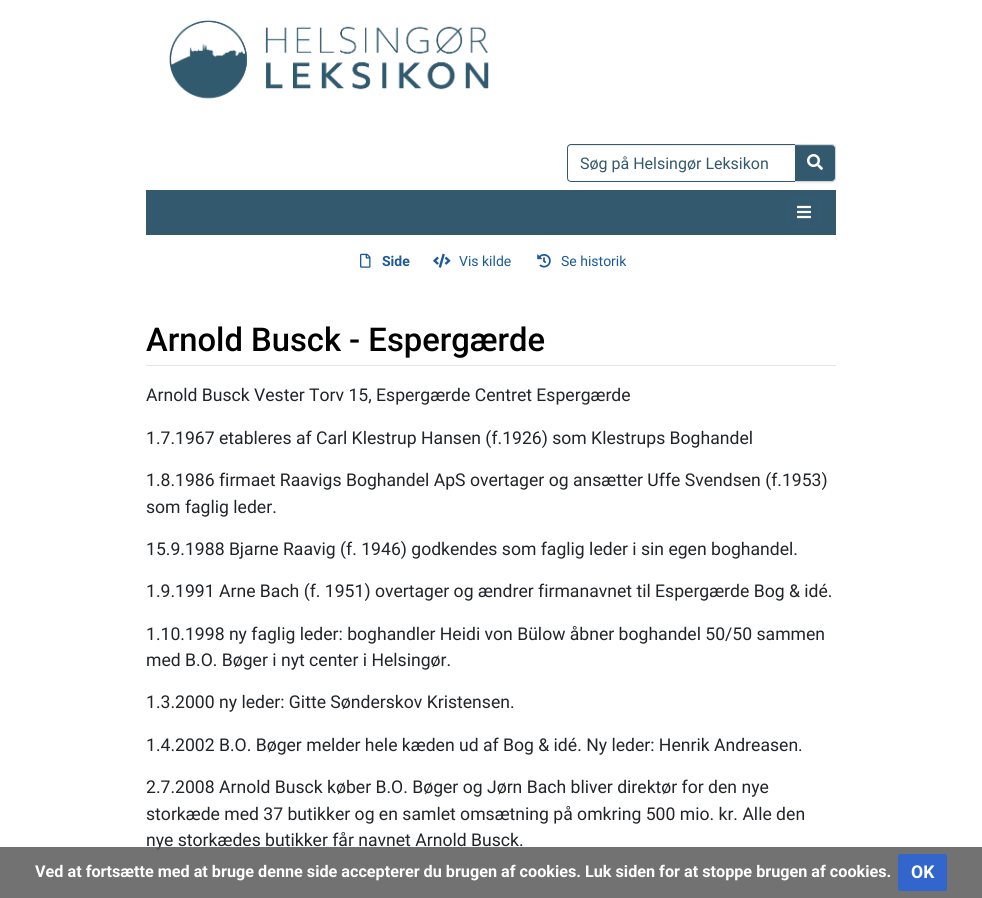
#include <cairo.h>
#include <math.h>
#include <stddef.h>


static void round_rect(cairo_t *cr, double x, double y, double w, double h, double r) {
    cairo_new_sub_path(cr);
    cairo_arc(cr, x + w - r, y + h - r, r, 0, M_PI / 2);
    cairo_arc(cr, x + r, y + h - r, r, M_PI / 2, M_PI);
    cairo_arc(cr, x + r, y + r, r, M_PI, 1.5 * M_PI);
    cairo_arc(cr, x + w - r, y + r, r, 1.5 * M_PI, 2 * M_PI);
    cairo_close_path(cr);
}

static void shadow(cairo_t *cr, double x, double y, double w, double h, double r, double blur, double alpha) {
    cairo_push_group_with_content(cr, CAIRO_CONTENT_ALPHA);
    cairo_set_operator(cr, CAIRO_OPERATOR_SOURCE);
    for (int i = 15; i >= -15 && fmin(w, h) + blur * i / 3 > 0; i -= 2) {
        double e = blur * i / 6;
        cairo_set_source_rgba(cr, 0, 0, 0, alpha * erfc((i - 1) / 8.5) / 2);
        round_rect(cr, x - e, y - e, w + 2 * e, h + 2 * e, fmax(0, fmin(r + e + blur * .6, fmin(w, h) / 2 + e)));
        cairo_fill(cr);
    }
    cairo_pattern_t *soft = cairo_pop_group(cr);
    cairo_mask(cr, soft);
    cairo_pattern_destroy(soft);
}

static void picture(cairo_t *cr, const char *path, double x, double y, double w, double h) {
    cairo_surface_t *image = cairo_image_surface_create_from_png(path);
    cairo_save(cr);
    cairo_set_source_surface(cr, image, x, y);
    cairo_rectangle(cr, x, y, w, h);
    cairo_fill(cr);
    cairo_restore(cr);
    cairo_surface_destroy(image);
}

int main(void) {
    cairo_surface_t *surface = cairo_image_surface_create(CAIRO_FORMAT_RGB24, 982, 898);
    cairo_t *cr = cairo_create(surface);
    cairo_font_options_t *options = cairo_font_options_create();
    cairo_font_options_set_hint_metrics(options, CAIRO_HINT_METRICS_OFF);
    cairo_font_options_set_hint_style(options, CAIRO_HINT_STYLE_NONE);
    cairo_set_font_options(cr, options);
    cairo_set_miter_limit(cr, 4);
    cairo_set_source_rgb(cr, 1, 1, 1);
    cairo_paint(cr);
    picture(cr, "img1.png", 169, 20, 320, 79);
    cairo_set_source_rgb(cr, 0.925, 0.925, 0.925);
    cairo_new_path(cr);
    cairo_move_to(cr, 571, 146);
    cairo_line_to(cr, 795, 146);
    cairo_line_to(cr, 795, 145);
    cairo_line_to(cr, 571, 145);
    cairo_curve_to(cr, 569, 145, 568, 147, 568, 149);
    cairo_curve_to(cr, 568, 147, 569, 146, 571, 146);
    cairo_close_path(cr);
    cairo_fill(cr);
    cairo_new_path(cr);
    cairo_move_to(cr, 571, 144.5);
    cairo_line_to(cr, 795.5, 144.5);
    cairo_line_to(cr, 795.5, 181.5);
    cairo_line_to(cr, 571, 181.5);
    cairo_curve_to(cr, 569, 181.5, 567.5, 180, 567.5, 178);
    cairo_line_to(cr, 567.5, 148);
    cairo_curve_to(cr, 567.5, 146, 569, 144.5, 571, 144.5);
    cairo_close_path(cr);
    cairo_set_source_rgb(cr, 0.196, 0.349, 0.431);
    cairo_set_line_width(cr, 1);
    cairo_stroke(cr);
    cairo_select_font_face(cr, "Roboto", CAIRO_FONT_SLANT_NORMAL, CAIRO_FONT_WEIGHT_NORMAL);
    cairo_set_font_size(cr, 16);
    cairo_move_to(cr, 580, 169);
    cairo_show_text(cr, "Søg på Helsingør Leksikon");
    cairo_set_source_rgb(cr, 0, 0, 0);
    shadow(cr, 795, 145, 41, 38, 4, 0.5, 0.07);
    cairo_set_source_rgb(cr, 0.196, 0.349, 0.431);
    cairo_new_path(cr);
    cairo_move_to(cr, 795, 145);
    cairo_line_to(cr, 832, 145);
    cairo_curve_to(cr, 833.5, 145, 835, 146.5, 835, 148);
    cairo_line_to(cr, 835, 178);
    cairo_curve_to(cr, 835, 179.5, 833.5, 181, 832, 181);
    cairo_line_to(cr, 795, 181);
    cairo_close_path(cr);
    cairo_fill(cr);
    cairo_set_source_rgba(cr, 1, 1, 1, 0.15);
    cairo_new_path(cr);
    cairo_move_to(cr, 795, 146);
    cairo_line_to(cr, 832, 146);
    cairo_curve_to(cr, 834, 146, 835, 147, 835, 149);
    cairo_line_to(cr, 835, 148);
    cairo_curve_to(cr, 835, 146, 834, 145, 832, 145);
    cairo_line_to(cr, 795, 145);
    cairo_close_path(cr);
    cairo_fill(cr);
    cairo_set_source_rgb(cr, 0.808, 0.831, 0.855);
    cairo_set_fill_rule(cr, CAIRO_FILL_RULE_EVEN_ODD);
    cairo_new_path(cr);
    cairo_move_to(cr, 795, 144);
    cairo_line_to(cr, 832, 144);
    cairo_curve_to(cr, 834, 144, 836, 146, 836, 148);
    cairo_line_to(cr, 836, 178);
    cairo_curve_to(cr, 836, 180, 834, 182, 832, 182);
    cairo_line_to(cr, 795, 182);
    cairo_close_path(cr);
    cairo_move_to(cr, 795, 145);
    cairo_line_to(cr, 832, 145);
    cairo_curve_to(cr, 834, 145, 835, 146, 835, 148);
    cairo_line_to(cr, 835, 178);
    cairo_curve_to(cr, 835, 180, 834, 181, 832, 181);
    cairo_line_to(cr, 795, 181);
    cairo_close_path(cr);
    cairo_fill(cr);
    picture(cr, "img2.png", 807, 154, 16, 16);
    cairo_set_source_rgb(cr, 0.196, 0.349, 0.431);
    cairo_rectangle(cr, 146, 190, 690, 45);
    cairo_fill(cr);
    round_rect(cr, 788.5, 198.5, 31, 28, 3.5);
    cairo_set_source_rgb(cr, 0.204, 0.353, 0.475);
    cairo_stroke(cr);
    picture(cr, "img3.png", 797, 205, 14, 14);
    picture(cr, "img4.png", 360, 253, 11, 15);
    cairo_select_font_face(cr, "Roboto", CAIRO_FONT_SLANT_NORMAL, CAIRO_FONT_WEIGHT_BOLD);
    cairo_set_font_size(cr, 14);
    cairo_set_source_rgb(cr, 0.106, 0.349, 0.608);
    cairo_move_to(cr, 382, 266);
    cairo_show_text(cr, "Side");
    picture(cr, "img5.png", 433, 253, 18, 15);
    cairo_select_font_face(cr, "Roboto", CAIRO_FONT_SLANT_NORMAL, CAIRO_FONT_WEIGHT_NORMAL);
    cairo_move_to(cr, 459, 266);
    cairo_show_text(cr, "Vis kilde");
    picture(cr, "img6.png", 537, 254, 14, 14);
    cairo_move_to(cr, 561, 266);
    cairo_show_text(cr, "Se historik");
    cairo_set_source_rgb(cr, 0.902, 0.902, 0.902);
    cairo_rectangle(cr, 146, 365, 690, 1);
    cairo_fill(cr);
    cairo_select_font_face(cr, "Roboto Medium", CAIRO_FONT_SLANT_NORMAL, CAIRO_FONT_WEIGHT_NORMAL);
    cairo_set_font_size(cr, 32.75);
    cairo_set_source_rgb(cr, 0, 0, 0);
    cairo_move_to(cr, 146, 351);
    cairo_show_text(cr, "Arnold Busck - Espergærde");
    cairo_select_font_face(cr, "Roboto", CAIRO_FONT_SLANT_NORMAL, CAIRO_FONT_WEIGHT_NORMAL);
    cairo_set_font_size(cr, 17.6);
    cairo_set_source_rgb(cr, 0.129, 0.145, 0.161);
    cairo_move_to(cr, 146, 401);
    cairo_show_text(cr, "Arnold Busck Vester Torv 15, Espergærde Centret Espergærde");
    cairo_move_to(cr, 146, 444);
    cairo_show_text(cr, "1.7.1967 etableres af Carl Klestrup Hansen (f.1926) som Klestrups Boghandel");
    cairo_move_to(cr, 146, 486);
    cairo_show_text(cr, "1.8.1986 firmaet Raavigs Boghandel ApS overtager og ansætter Uffe Svendsen (f.1953)");
    cairo_move_to(cr, 146, 513);
    cairo_show_text(cr, "som faglig leder.");
    cairo_move_to(cr, 146, 555);
    cairo_show_text(cr, "15.9.1988 Bjarne Raavig (f. 1946) godkendes som faglig leder i sin egen boghandel.");
    cairo_move_to(cr, 146, 597);
    cairo_show_text(cr, "1.9.1991 Arne Bach (f. 1951) overtager og ændrer firmanavnet til Espergærde Bog & idé.");
    cairo_move_to(cr, 146, 640);
    cairo_show_text(cr, "1.10.1998 ny faglig leder: boghandler Heidi von Bülow åbner boghandel 50/50 sammen");
    cairo_move_to(cr, 146, 666);
    cairo_show_text(cr, "med B.O. Bøger i nyt center i Helsingør.");
    cairo_move_to(cr, 146, 708);
    cairo_show_text(cr, "1.3.2000 ny leder: Gitte Sønderskov Kristensen.");
    cairo_move_to(cr, 146, 751);
    cairo_show_text(cr, "1.4.2002 B.O. Bøger melder hele kæden ud af Bog & idé. Ny leder: Henrik Andreasen.");
    cairo_move_to(cr, 146, 793);
    cairo_show_text(cr, "2.7.2008 Arnold Busck køber B.O. Bøger og Jørn Bach bliver direktør for den nye");
    cairo_move_to(cr, 146, 820);
    cairo_show_text(cr, "storkæde med 37 butikker og en samlet omsætning på omkring 500 mio. kr. Alle den");
    cairo_move_to(cr, 146, 846);
    cairo_show_text(cr, "nye storkædes butikker får navnet Arnold Busck.");
    cairo_set_source_rgba(cr, 0.353, 0.353, 0.353, 0.85);
    cairo_rectangle(cr, 0, 847, 982, 51);
    cairo_fill(cr);
    cairo_select_font_face(cr, "Roboto", CAIRO_FONT_SLANT_NORMAL, CAIRO_FONT_WEIGHT_BOLD);
    cairo_set_font_size(cr, 16.2);
    cairo_set_source_rgb(cr, 1, 1, 1);
    cairo_move_to(cr, 35, 877);
    cairo_show_text(cr, "Ved at fortsætte med at bruge denne side accepterer du brugen af cookies. Luk siden for at stoppe brugen af cookies.");
    cairo_set_source_rgb(cr, 0.2, 0.4, 0.8);
    round_rect(cr, 898.5, 854.5, 48, 36, 1.5);
    cairo_fill_preserve(cr);
    cairo_stroke(cr);
    cairo_set_font_size(cr, 17.6);
    cairo_set_source_rgb(cr, 1, 1, 1);
    cairo_move_to(cr, 911, 878);
    cairo_show_text(cr, "OK");
    cairo_surface_write_to_png(surface, "page.png");
    cairo_font_options_destroy(options);
    cairo_destroy(cr);
    cairo_surface_destroy(surface);
    return 0;
}
